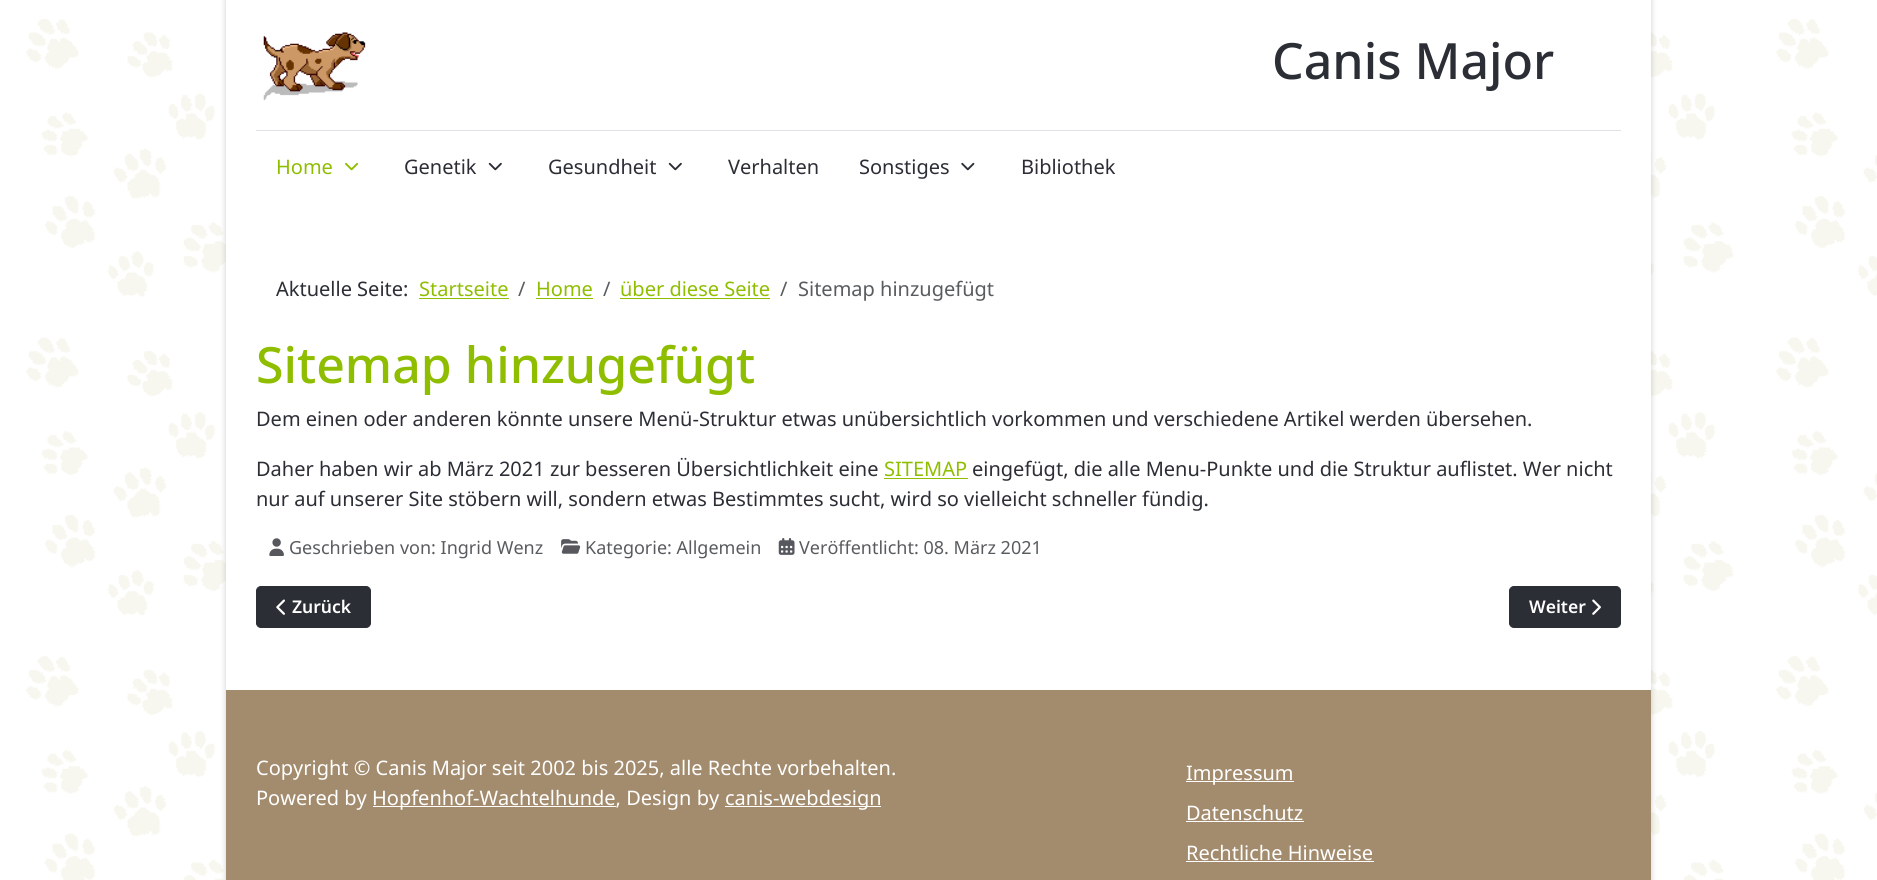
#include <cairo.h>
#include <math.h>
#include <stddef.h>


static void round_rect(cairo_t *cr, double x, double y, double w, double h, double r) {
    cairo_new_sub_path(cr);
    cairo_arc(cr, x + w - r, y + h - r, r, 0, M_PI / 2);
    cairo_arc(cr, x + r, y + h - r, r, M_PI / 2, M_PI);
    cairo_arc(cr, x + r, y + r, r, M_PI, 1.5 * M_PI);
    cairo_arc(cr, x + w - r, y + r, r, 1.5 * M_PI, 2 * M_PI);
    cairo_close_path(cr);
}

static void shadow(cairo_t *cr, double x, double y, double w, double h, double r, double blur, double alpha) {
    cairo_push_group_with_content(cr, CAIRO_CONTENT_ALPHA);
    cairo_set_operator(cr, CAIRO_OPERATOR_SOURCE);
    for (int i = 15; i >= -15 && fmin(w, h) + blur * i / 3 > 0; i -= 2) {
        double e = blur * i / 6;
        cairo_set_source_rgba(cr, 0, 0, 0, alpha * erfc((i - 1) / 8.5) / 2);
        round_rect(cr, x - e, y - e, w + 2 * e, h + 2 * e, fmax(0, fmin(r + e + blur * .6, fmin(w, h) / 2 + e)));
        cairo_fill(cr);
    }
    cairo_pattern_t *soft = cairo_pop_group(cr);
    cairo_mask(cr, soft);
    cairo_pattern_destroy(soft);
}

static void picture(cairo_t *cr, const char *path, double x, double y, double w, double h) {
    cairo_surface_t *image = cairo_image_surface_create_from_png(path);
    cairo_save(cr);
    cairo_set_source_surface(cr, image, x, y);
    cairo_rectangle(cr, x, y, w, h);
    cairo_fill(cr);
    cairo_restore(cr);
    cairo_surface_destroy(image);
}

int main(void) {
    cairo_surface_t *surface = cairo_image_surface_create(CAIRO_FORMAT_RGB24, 1877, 880);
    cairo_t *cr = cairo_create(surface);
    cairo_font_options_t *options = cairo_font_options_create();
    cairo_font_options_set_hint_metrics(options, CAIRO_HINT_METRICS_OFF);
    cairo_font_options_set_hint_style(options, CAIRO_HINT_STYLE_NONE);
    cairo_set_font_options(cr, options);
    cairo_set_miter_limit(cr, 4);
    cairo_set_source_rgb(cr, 1, 1, 1);
    cairo_paint(cr);
    picture(cr, "img1.png", 26, 19, 1851, 861);
    cairo_set_source_rgb(cr, 0, 0, 0);
    shadow(cr, 226, 0, 1425, 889, 0, 3, 0.2);
    cairo_set_source_rgb(cr, 1, 1, 1);
    cairo_rectangle(cr, 226, 0, 1425, 690);
    cairo_fill(cr);
    picture(cr, "img2.png", 263, 32, 103, 69);
    cairo_select_font_face(cr, "Noto Sans Medium", CAIRO_FONT_SLANT_NORMAL, CAIRO_FONT_WEIGHT_NORMAL);
    cairo_set_font_size(cr, 50);
    cairo_set_source_rgb(cr, 0.173, 0.18, 0.212);
    cairo_move_to(cr, 1272, 79);
    cairo_show_text(cr, "Canis Major");
    cairo_set_source_rgb(cr, 0.871, 0.886, 0.902);
    cairo_rectangle(cr, 256, 130, 1365, 1);
    cairo_fill(cr);
    cairo_select_font_face(cr, "Noto Sans", CAIRO_FONT_SLANT_NORMAL, CAIRO_FONT_WEIGHT_NORMAL);
    cairo_set_font_size(cr, 20);
    cairo_set_source_rgb(cr, 0.561, 0.745, 0);
    cairo_move_to(cr, 276, 174);
    cairo_show_text(cr, "Home");
    picture(cr, "img3.png", 345, 162, 14, 9);
    cairo_set_source_rgb(cr, 0.173, 0.18, 0.212);
    cairo_move_to(cr, 404, 174);
    cairo_show_text(cr, "Genetik");
    picture(cr, "img4.png", 488, 162, 14, 9);
    cairo_move_to(cr, 548, 174);
    cairo_show_text(cr, "Gesundheit");
    picture(cr, "img4.png", 668, 162, 14, 9);
    cairo_move_to(cr, 728, 174);
    cairo_show_text(cr, "Verhalten");
    cairo_move_to(cr, 859, 174);
    cairo_show_text(cr, "Sonstiges");
    picture(cr, "img5.png", 961, 162, 14, 9);
    cairo_move_to(cr, 1021, 174);
    cairo_show_text(cr, "Bibliothek");
    cairo_move_to(cr, 276, 296);
    cairo_show_text(cr, "Aktuelle Seite:");
    cairo_set_source_rgb(cr, 0.561, 0.745, 0);
    cairo_move_to(cr, 419, 296);
    cairo_show_text(cr, "Startseite");
    cairo_rectangle(cr, 419, 298, 90, 1);
    cairo_fill(cr);
    cairo_set_source_rgb(cr, 0.349, 0.361, 0.373);
    cairo_move_to(cr, 518, 296);
    cairo_show_text(cr, "/");
    cairo_set_source_rgb(cr, 0.561, 0.745, 0);
    cairo_move_to(cr, 536, 296);
    cairo_show_text(cr, "Home");
    cairo_rectangle(cr, 536, 298, 57, 1);
    cairo_fill(cr);
    cairo_set_source_rgb(cr, 0.349, 0.361, 0.373);
    cairo_move_to(cr, 603, 296);
    cairo_show_text(cr, "/");
    cairo_set_source_rgb(cr, 0.561, 0.745, 0);
    cairo_move_to(cr, 620, 296);
    cairo_show_text(cr, "über diese Seite");
    cairo_rectangle(cr, 620, 298, 150, 1);
    cairo_fill(cr);
    cairo_set_source_rgb(cr, 0.349, 0.361, 0.373);
    cairo_move_to(cr, 780, 296);
    cairo_show_text(cr, "/");
    cairo_move_to(cr, 798, 296);
    cairo_show_text(cr, "Sitemap hinzugefügt");
    cairo_select_font_face(cr, "Noto Sans Medium", CAIRO_FONT_SLANT_NORMAL, CAIRO_FONT_WEIGHT_NORMAL);
    cairo_set_font_size(cr, 50);
    cairo_set_source_rgb(cr, 0.561, 0.745, 0);
    cairo_move_to(cr, 256, 383);
    cairo_show_text(cr, "Sitemap hinzugefügt");
    cairo_select_font_face(cr, "Noto Sans", CAIRO_FONT_SLANT_NORMAL, CAIRO_FONT_WEIGHT_NORMAL);
    cairo_set_font_size(cr, 20);
    cairo_set_source_rgb(cr, 0.173, 0.18, 0.212);
    cairo_move_to(cr, 256, 426);
    cairo_show_text(cr, "Dem einen oder anderen könnte unsere Menü-Struktur etwas unübersichtlich vorkommen und verschiedene Artikel werden übersehen.");
    cairo_move_to(cr, 256, 476);
    cairo_show_text(cr, "Daher haben wir ab März 2021 zur besseren Übersichtlichkeit eine");
    cairo_set_source_rgb(cr, 0.561, 0.745, 0);
    cairo_move_to(cr, 884, 476);
    cairo_show_text(cr, "SITEMAP");
    cairo_rectangle(cr, 884, 478, 84, 1);
    cairo_fill(cr);
    cairo_set_source_rgb(cr, 0.173, 0.18, 0.212);
    cairo_move_to(cr, 972, 476);
    cairo_show_text(cr, "eingefügt, die alle Menu-Punkte und die Struktur auflistet. Wer nicht");
    cairo_move_to(cr, 256, 506);
    cairo_show_text(cr, "nur auf unserer Site stöbern will, sondern etwas Bestimmtes sucht, wird so vielleicht schneller fündig.");
    picture(cr, "img6.png", 269, 538, 15, 18);
    cairo_set_font_size(cr, 18);
    cairo_set_source_rgb(cr, 0.349, 0.361, 0.373);
    cairo_move_to(cr, 289, 554);
    cairo_show_text(cr, "Geschrieben von: Ingrid Wenz");
    picture(cr, "img7.png", 561, 539, 20, 15);
    cairo_move_to(cr, 585, 554);
    cairo_show_text(cr, "Kategorie: Allgemein");
    picture(cr, "img8.png", 778, 538, 17, 17);
    cairo_move_to(cr, 799, 554);
    cairo_show_text(cr, "Veröffentlicht: 08. März 2021");
    cairo_set_source_rgb(cr, 0.173, 0.18, 0.212);
    round_rect(cr, 256.5, 586.5, 114, 41, 4.5);
    cairo_fill_preserve(cr);
    cairo_set_line_width(cr, 1);
    cairo_stroke(cr);
    picture(cr, "img9.png", 276, 599, 9, 16);
    cairo_select_font_face(cr, "Noto Sans SemiBold", CAIRO_FONT_SLANT_NORMAL, CAIRO_FONT_WEIGHT_NORMAL);
    cairo_set_font_size(cr, 17.5);
    cairo_set_source_rgb(cr, 1, 1, 1);
    cairo_move_to(cr, 292, 613);
    cairo_show_text(cr, "Zurück");
    cairo_set_source_rgb(cr, 0.173, 0.18, 0.212);
    round_rect(cr, 1509.5, 586.5, 111, 41, 4.5);
    cairo_fill_preserve(cr);
    cairo_stroke(cr);
    cairo_set_source_rgb(cr, 1, 1, 1);
    cairo_move_to(cr, 1529, 613);
    cairo_show_text(cr, "Weiter");
    picture(cr, "img10.png", 1592, 599, 9, 16);
    cairo_set_source_rgb(cr, 0.639, 0.545, 0.427);
    cairo_rectangle(cr, 226, 690, 1425, 190);
    cairo_fill(cr);
    cairo_select_font_face(cr, "Noto Sans", CAIRO_FONT_SLANT_NORMAL, CAIRO_FONT_WEIGHT_NORMAL);
    cairo_set_font_size(cr, 20);
    cairo_set_source_rgb(cr, 1, 1, 1);
    cairo_move_to(cr, 256, 775);
    cairo_show_text(cr, "Copyright © Canis Major seit 2002 bis 2025, alle Rechte vorbehalten.");
    cairo_move_to(cr, 256, 805);
    cairo_show_text(cr, "Powered by");
    cairo_rectangle(cr, 373, 806, 243, 1);
    cairo_fill(cr);
    cairo_move_to(cr, 372, 805);
    cairo_show_text(cr, "Hopfenhof-Wachtelhunde, Design by");
    cairo_rectangle(cr, 725, 806, 156, 1);
    cairo_fill(cr);
    cairo_move_to(cr, 725, 805);
    cairo_show_text(cr, "canis-webdesign");
    cairo_rectangle(cr, 1186, 781, 108, 1);
    cairo_fill(cr);
    cairo_move_to(cr, 1186, 780);
    cairo_show_text(cr, "Impressum");
    cairo_move_to(cr, 1186, 820);
    cairo_show_text(cr, "Datenschutz");
    cairo_rectangle(cr, 1186, 821, 118, 1);
    cairo_fill(cr);
    cairo_move_to(cr, 1186, 860);
    cairo_show_text(cr, "Rechtliche Hinweise");
    cairo_rectangle(cr, 1186, 861, 188, 1);
    cairo_fill(cr);
    cairo_surface_write_to_png(surface, "page.png");
    cairo_font_options_destroy(options);
    cairo_destroy(cr);
    cairo_surface_destroy(surface);
    return 0;
}
